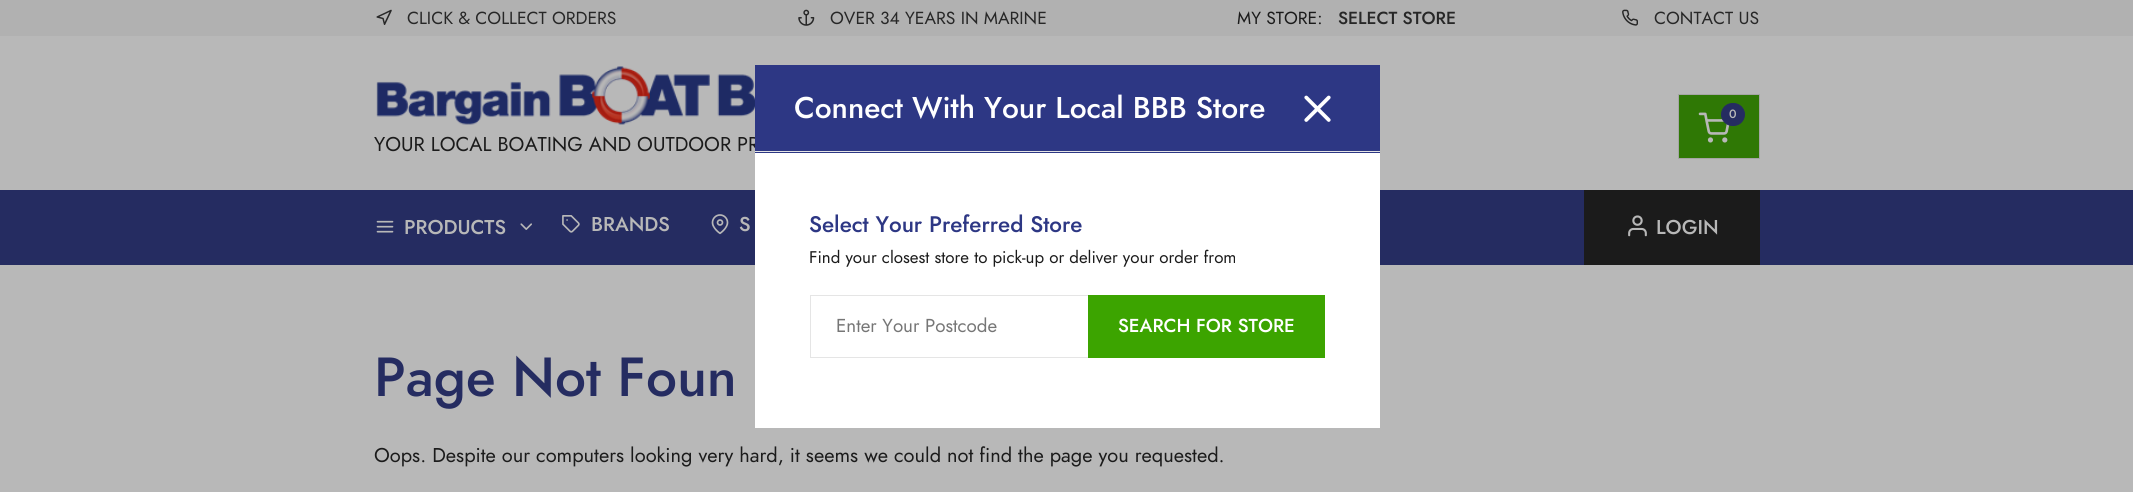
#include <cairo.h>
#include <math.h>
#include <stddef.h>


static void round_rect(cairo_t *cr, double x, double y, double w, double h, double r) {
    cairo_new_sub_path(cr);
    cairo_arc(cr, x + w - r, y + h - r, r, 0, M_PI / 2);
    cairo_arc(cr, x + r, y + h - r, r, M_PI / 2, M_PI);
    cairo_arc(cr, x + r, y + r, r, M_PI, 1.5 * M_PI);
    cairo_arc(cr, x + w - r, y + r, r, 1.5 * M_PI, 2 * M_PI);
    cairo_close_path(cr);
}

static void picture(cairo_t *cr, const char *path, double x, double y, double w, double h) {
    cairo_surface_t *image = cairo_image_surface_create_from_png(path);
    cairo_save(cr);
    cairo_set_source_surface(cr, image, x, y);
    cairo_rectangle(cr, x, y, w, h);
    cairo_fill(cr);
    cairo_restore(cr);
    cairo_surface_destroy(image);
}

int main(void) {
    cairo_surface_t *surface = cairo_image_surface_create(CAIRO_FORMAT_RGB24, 2133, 492);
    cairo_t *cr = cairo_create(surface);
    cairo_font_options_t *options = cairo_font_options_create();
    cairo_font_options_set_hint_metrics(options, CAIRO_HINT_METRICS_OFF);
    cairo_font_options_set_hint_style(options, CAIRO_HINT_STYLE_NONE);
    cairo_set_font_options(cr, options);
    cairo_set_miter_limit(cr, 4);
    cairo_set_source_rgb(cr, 0.722, 0.722, 0.722);
    cairo_paint(cr);
    cairo_set_source_rgb(cr, 0.694, 0.694, 0.694);
    cairo_rectangle(cr, 0, 0, 2133, 36);
    cairo_fill(cr);
    picture(cr, "img1.png", 376, 9, 16, 16);
    cairo_select_font_face(cr, "Jost", CAIRO_FONT_SLANT_NORMAL, CAIRO_FONT_WEIGHT_NORMAL);
    cairo_set_font_size(cr, 17.5);
    cairo_set_source_rgb(cr, 0.153, 0.153, 0.153);
    cairo_move_to(cr, 407, 24);
    cairo_show_text(cr, "CLICK & COLLECT ORDERS");
    picture(cr, "img2.png", 798, 9, 17, 17);
    cairo_move_to(cr, 830, 24);
    cairo_show_text(cr, "OVER 34 YEARS IN MARINE");
    cairo_set_source_rgb(cr, 0.106, 0.106, 0.106);
    cairo_move_to(cr, 1237, 24);
    cairo_show_text(cr, "MY STORE:");
    cairo_select_font_face(cr, "Jost Medium", CAIRO_FONT_SLANT_NORMAL, CAIRO_FONT_WEIGHT_NORMAL);
    cairo_set_source_rgb(cr, 0.153, 0.153, 0.153);
    cairo_move_to(cr, 1338, 24);
    cairo_show_text(cr, "SELECT STORE");
    picture(cr, "img3.png", 1622, 9, 16, 17);
    cairo_select_font_face(cr, "Jost", CAIRO_FONT_SLANT_NORMAL, CAIRO_FONT_WEIGHT_NORMAL);
    cairo_move_to(cr, 1654, 24);
    cairo_show_text(cr, "CONTACT US");
    cairo_set_source_rgb(cr, 0.145, 0.173, 0.38);
    cairo_rectangle(cr, 0, 190, 2133, 75);
    cairo_fill(cr);
    cairo_set_source_rgb(cr, 1, 1, 1);
    cairo_rectangle(cr, 755, 153, 625, 275);
    cairo_fill(cr);
    cairo_set_font_size(cr, 20);
    cairo_set_source_rgb(cr, 0.106, 0.106, 0.106);
    cairo_move_to(cr, 374, 151);
    cairo_show_text(cr, "YOUR LOCAL BOATING AND OUTDOOR PR");
    cairo_set_source_rgb(cr, 0.176, 0.216, 0.518);
    cairo_rectangle(cr, 755, 65, 625, 88);
    cairo_fill(cr);
    cairo_set_source_rgb(cr, 0.898, 0.898, 0.898);
    cairo_rectangle(cr, 755, 151, 625, 1);
    cairo_fill(cr);
    cairo_select_font_face(cr, "Jost Medium", CAIRO_FONT_SLANT_NORMAL, CAIRO_FONT_WEIGHT_NORMAL);
    cairo_set_font_size(cr, 30);
    cairo_set_source_rgb(cr, 1, 1, 1);
    cairo_move_to(cr, 794, 118);
    cairo_show_text(cr, "Connect With Your Local BBB Store");
    picture(cr, "img4.png", 1304, 95, 27, 27);
    cairo_set_font_size(cr, 22.5);
    cairo_set_source_rgb(cr, 0.176, 0.216, 0.518);
    cairo_move_to(cr, 809, 232);
    cairo_show_text(cr, "Select Your Preferred Store");
    cairo_select_font_face(cr, "Jost", CAIRO_FONT_SLANT_NORMAL, CAIRO_FONT_WEIGHT_NORMAL);
    cairo_set_font_size(cr, 16.9);
    cairo_set_source_rgb(cr, 0.106, 0.106, 0.106);
    cairo_move_to(cr, 809, 263);
    cairo_show_text(cr, "Find your closest store to pick-up or deliver your order from");
    cairo_rectangle(cr, 810.5, 295.5, 278, 62);
    cairo_set_source_rgb(cr, 0.898, 0.898, 0.898);
    cairo_set_line_width(cr, 1);
    cairo_stroke(cr);
    cairo_set_font_size(cr, 18.75);
    cairo_set_source_rgb(cr, 0.463, 0.463, 0.463);
    cairo_move_to(cr, 836, 332);
    cairo_show_text(cr, "Enter Your Postcode");
    cairo_set_source_rgb(cr, 0.235, 0.643, 0);
    cairo_rectangle(cr, 1088, 295, 237, 63);
    cairo_fill(cr);
    cairo_select_font_face(cr, "Jost Medium", CAIRO_FONT_SLANT_NORMAL, CAIRO_FONT_WEIGHT_NORMAL);
    cairo_set_source_rgb(cr, 1, 1, 1);
    cairo_move_to(cr, 1118, 332);
    cairo_show_text(cr, "SEARCH FOR STORE");
    cairo_set_source_rgb(cr, 0.184, 0.471, 0.02);
    cairo_rectangle(cr, 1678.5, 94.5, 81, 64);
    cairo_fill_preserve(cr);
    cairo_set_source_rgb(cr, 0.647, 0.647, 0.647);
    cairo_stroke(cr);
    picture(cr, "img5.png", 1698, 112, 32, 31);
    cairo_set_source_rgb(cr, 0.145, 0.173, 0.38);
    round_rect(cr, 1721.5, 103.5, 23, 22, 11);
    cairo_fill_preserve(cr);
    cairo_stroke(cr);
    cairo_set_font_size(cr, 12);
    cairo_set_source_rgb(cr, 0.722, 0.722, 0.722);
    cairo_move_to(cr, 1729, 118);
    cairo_show_text(cr, "0");
    picture(cr, "img6.png", 376, 66, 379, 59);
    picture(cr, "img7.png", 376, 220, 18, 13);
    cairo_set_font_size(cr, 20);
    cairo_move_to(cr, 404, 234);
    cairo_show_text(cr, "PRODUCTS");
    picture(cr, "img8.png", 520, 223, 12, 7);
    picture(cr, "img9.png", 562, 215, 18, 18);
    cairo_move_to(cr, 591, 231);
    cairo_show_text(cr, "BRANDS");
    picture(cr, "img10.png", 711, 214, 18, 21);
    cairo_move_to(cr, 739, 231);
    cairo_show_text(cr, "S");
    cairo_set_source_rgb(cr, 0.106, 0.106, 0.106);
    cairo_rectangle(cr, 1584, 190, 176, 75);
    cairo_fill(cr);
    picture(cr, "img11.png", 1628, 215, 19, 22);
    cairo_set_source_rgb(cr, 0.722, 0.722, 0.722);
    cairo_move_to(cr, 1656, 234);
    cairo_show_text(cr, "LOGIN");
    cairo_set_font_size(cr, 55);
    cairo_set_source_rgb(cr, 0.145, 0.173, 0.38);
    cairo_move_to(cr, 374, 396);
    cairo_show_text(cr, "Page Not Foun");
    cairo_select_font_face(cr, "Jost", CAIRO_FONT_SLANT_NORMAL, CAIRO_FONT_WEIGHT_NORMAL);
    cairo_set_font_size(cr, 20);
    cairo_set_source_rgb(cr, 0.106, 0.106, 0.106);
    cairo_move_to(cr, 374, 462);
    cairo_show_text(cr, "Oops. Despite our computers looking very hard, it seems we could not find the page you requested.");
    cairo_surface_write_to_png(surface, "page.png");
    cairo_font_options_destroy(options);
    cairo_destroy(cr);
    cairo_surface_destroy(surface);
    return 0;
}
